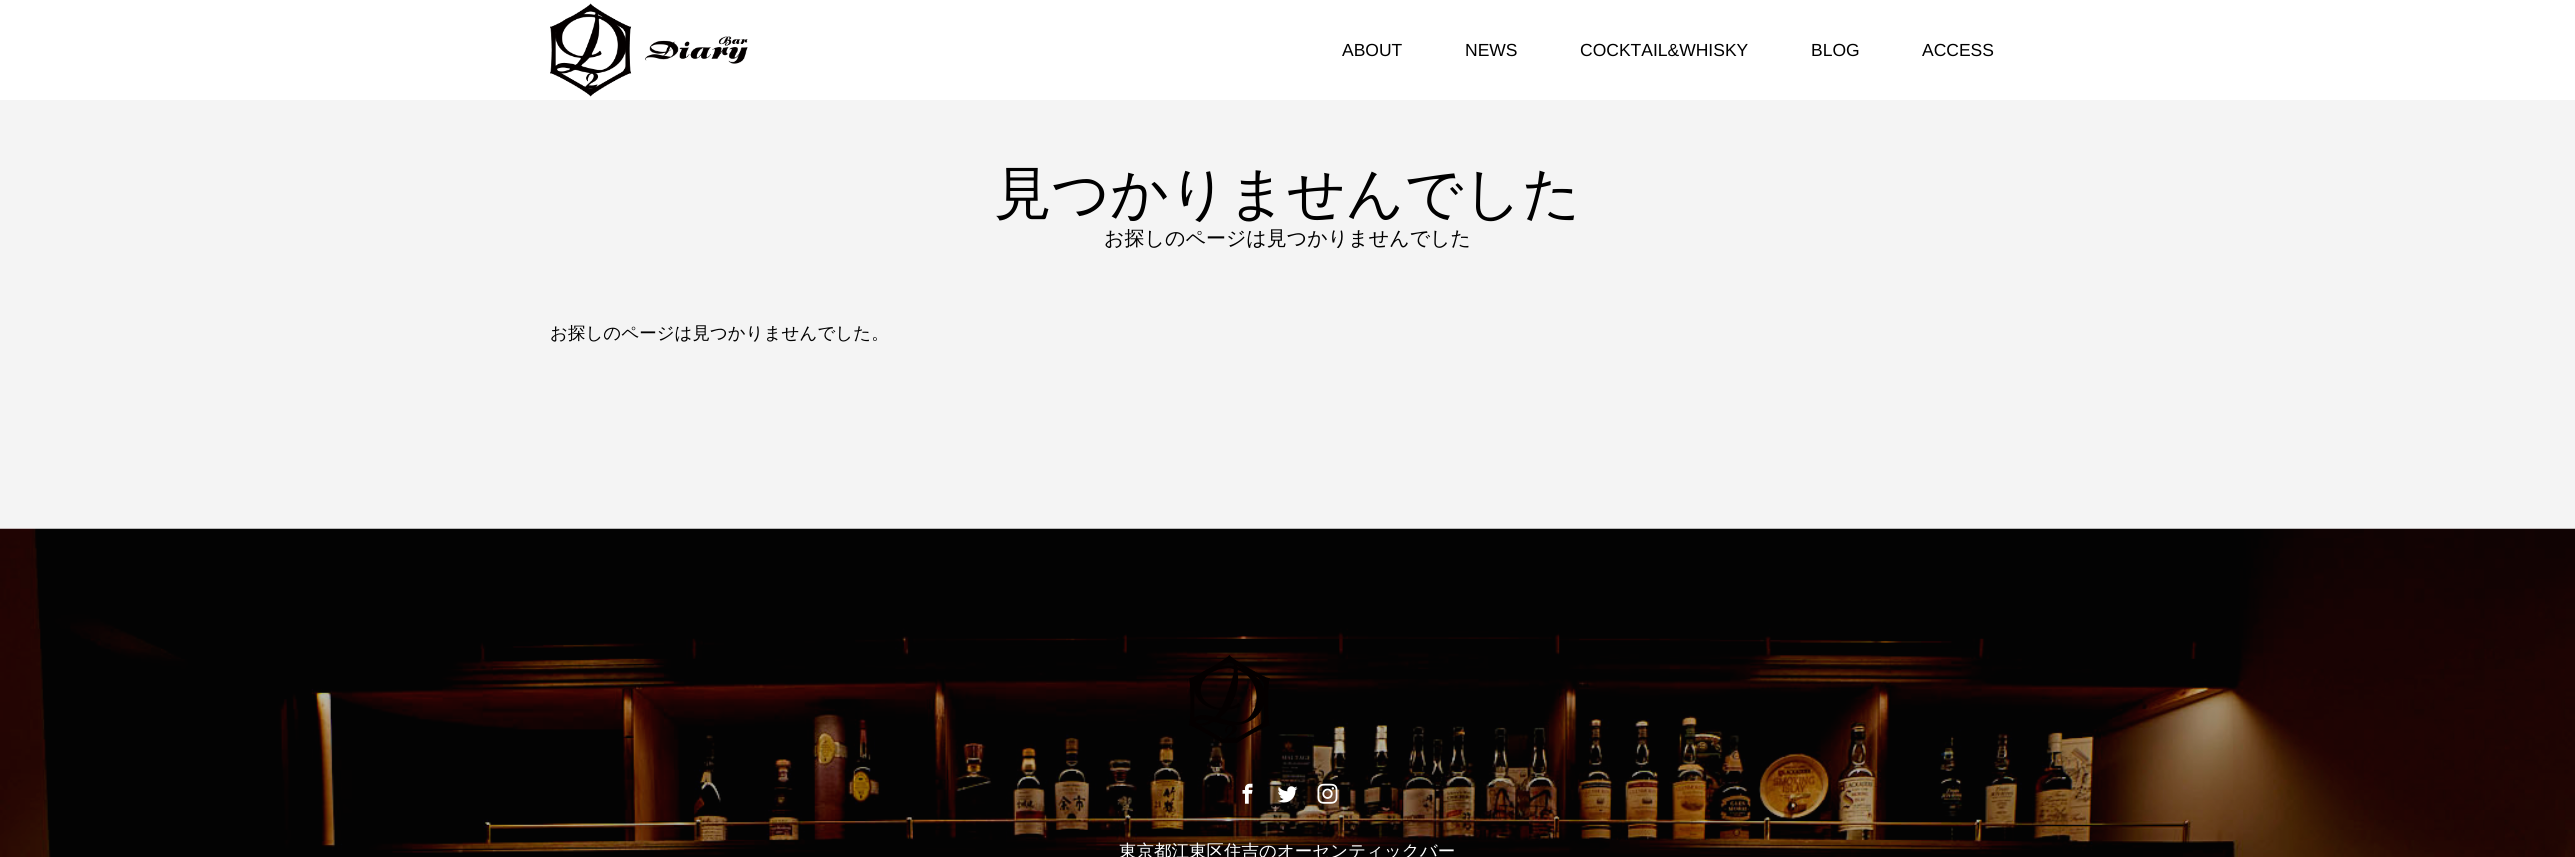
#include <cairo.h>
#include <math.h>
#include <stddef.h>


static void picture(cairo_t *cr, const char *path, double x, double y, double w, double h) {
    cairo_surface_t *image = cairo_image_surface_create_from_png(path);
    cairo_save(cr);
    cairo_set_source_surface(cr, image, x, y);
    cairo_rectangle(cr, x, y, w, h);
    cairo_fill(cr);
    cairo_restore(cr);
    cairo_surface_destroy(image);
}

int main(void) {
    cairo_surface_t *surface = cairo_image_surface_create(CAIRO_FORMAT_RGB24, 2575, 857);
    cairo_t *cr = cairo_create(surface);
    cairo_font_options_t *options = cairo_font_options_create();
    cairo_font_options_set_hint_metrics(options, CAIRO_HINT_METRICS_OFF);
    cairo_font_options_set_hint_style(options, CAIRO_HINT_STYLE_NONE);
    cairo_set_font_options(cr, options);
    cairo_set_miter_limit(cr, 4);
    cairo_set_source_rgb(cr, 1, 1, 1);
    cairo_paint(cr);
    picture(cr, "img1.png", 550, 3, 198, 94);
    cairo_select_font_face(cr, "Liberation Sans", CAIRO_FONT_SLANT_NORMAL, CAIRO_FONT_WEIGHT_NORMAL);
    cairo_set_font_size(cr, 17.5);
    cairo_set_source_rgb(cr, 0, 0, 0);
    cairo_move_to(cr, 1342, 56);
    cairo_show_text(cr, "ABOUT");
    cairo_move_to(cr, 1465, 56);
    cairo_show_text(cr, "NEWS");
    cairo_move_to(cr, 1580, 56);
    cairo_show_text(cr, "COCKTAIL&WHISKY");
    cairo_move_to(cr, 1811, 56);
    cairo_show_text(cr, "BLOG");
    cairo_move_to(cr, 1922, 56);
    cairo_show_text(cr, "ACCESS");
    cairo_set_source_rgb(cr, 0.957, 0.957, 0.957);
    cairo_rectangle(cr, 0, 100, 2575, 429);
    cairo_fill(cr);
    cairo_select_font_face(cr, "WenQuanYi Zen Hei Medium", CAIRO_FONT_SLANT_NORMAL, CAIRO_FONT_WEIGHT_NORMAL);
    cairo_set_font_size(cr, 57.5);
    cairo_set_source_rgb(cr, 0, 0, 0);
    cairo_move_to(cr, 994, 213);
    cairo_show_text(cr, "見つかりませんでした");
    cairo_set_font_size(cr, 20);
    cairo_move_to(cr, 1104, 245);
    cairo_show_text(cr, "お探しのページは見つかりませんでした");
    cairo_set_font_size(cr, 17.5);
    cairo_move_to(cr, 550, 339);
    cairo_show_text(cr, "お探しのページは見つかりませんでした。");
    picture(cr, "img2.png", 0, 528, 2575, 329);
    picture(cr, "img3.png", 1189, 655, 81, 88);
    picture(cr, "img4.png", 1242, 783, 11, 21);
    picture(cr, "img5.png", 1277, 786, 21, 17);
    picture(cr, "img6.png", 1317, 783, 21, 21);
    cairo_set_source_rgb(cr, 1, 1, 1);
    cairo_move_to(cr, 1119, 857);
    cairo_show_text(cr, "東京都江東区住吉のオーセンティックバー");
    cairo_surface_write_to_png(surface, "page.png");
    cairo_font_options_destroy(options);
    cairo_destroy(cr);
    cairo_surface_destroy(surface);
    return 0;
}
